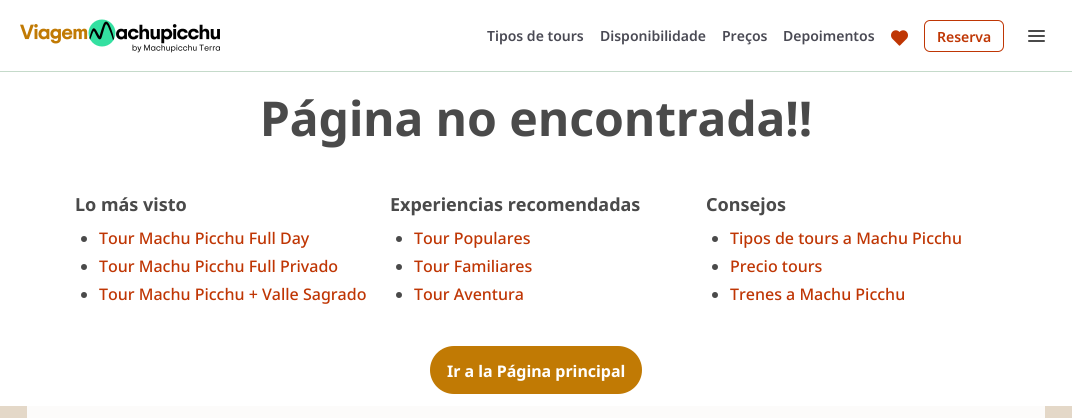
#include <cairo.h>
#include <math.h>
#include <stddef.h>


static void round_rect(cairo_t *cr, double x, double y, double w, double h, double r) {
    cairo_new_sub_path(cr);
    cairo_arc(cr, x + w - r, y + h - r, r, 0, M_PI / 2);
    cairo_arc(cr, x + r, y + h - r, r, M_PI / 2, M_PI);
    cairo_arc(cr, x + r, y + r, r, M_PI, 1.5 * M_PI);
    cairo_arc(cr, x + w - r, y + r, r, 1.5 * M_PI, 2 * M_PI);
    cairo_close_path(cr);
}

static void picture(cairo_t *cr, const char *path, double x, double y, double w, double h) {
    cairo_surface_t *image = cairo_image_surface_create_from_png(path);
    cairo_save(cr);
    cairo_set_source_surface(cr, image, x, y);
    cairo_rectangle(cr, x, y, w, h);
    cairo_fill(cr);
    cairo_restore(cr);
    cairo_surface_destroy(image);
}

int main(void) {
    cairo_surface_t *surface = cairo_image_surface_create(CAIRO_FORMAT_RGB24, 1072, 418);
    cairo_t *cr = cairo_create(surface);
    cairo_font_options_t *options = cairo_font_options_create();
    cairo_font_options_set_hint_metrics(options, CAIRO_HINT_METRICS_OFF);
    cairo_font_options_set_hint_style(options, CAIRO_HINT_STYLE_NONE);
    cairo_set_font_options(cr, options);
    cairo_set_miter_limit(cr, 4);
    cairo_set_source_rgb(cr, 1, 1, 1);
    cairo_paint(cr);
    cairo_set_source_rgb(cr, 0.894, 0.847, 0.784);
    cairo_rectangle(cr, 0, 406, 1072, 12);
    cairo_fill(cr);
    cairo_set_source_rgba(cr, 1, 1, 1, 0.9);
    round_rect(cr, 27, 30, 1018, 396, 8);
    cairo_fill(cr);
    cairo_set_source_rgb(cr, 0.773, 0.855, 0.792);
    cairo_rectangle(cr, 0, 71, 1072, 1);
    cairo_fill(cr);
    picture(cr, "img1.png", 20, 19, 200, 34);
    cairo_select_font_face(cr, "Noto Sans SemiBold", CAIRO_FONT_SLANT_NORMAL, CAIRO_FONT_WEIGHT_NORMAL);
    cairo_set_font_size(cr, 14);
    cairo_set_source_rgb(cr, 0.29, 0.29, 0.329);
    cairo_move_to(cr, 487, 41);
    cairo_show_text(cr, "Tipos de tours");
    cairo_move_to(cr, 600, 41);
    cairo_show_text(cr, "Disponibilidade");
    cairo_move_to(cr, 722, 41);
    cairo_show_text(cr, "Preços");
    cairo_move_to(cr, 783, 41);
    cairo_show_text(cr, "Depoimentos");
    picture(cr, "img2.png", 891, 30, 17, 16);
    round_rect(cr, 924.5, 20.5, 79, 31, 5.5);
    cairo_set_source_rgb(cr, 0.749, 0.212, 0.016);
    cairo_set_line_width(cr, 1);
    cairo_stroke(cr);
    cairo_move_to(cr, 937, 42);
    cairo_show_text(cr, "Reserva");
    cairo_set_source_rgb(cr, 0.29, 0.29, 0.29);
    round_rect(cr, 1028, 30, 17, 2, 1);
    cairo_fill(cr);
    round_rect(cr, 1028, 35, 17, 2, 1);
    cairo_fill(cr);
    round_rect(cr, 1028, 40, 17, 2, 1);
    cairo_fill(cr);
    cairo_select_font_face(cr, "Noto Sans", CAIRO_FONT_SLANT_NORMAL, CAIRO_FONT_WEIGHT_BOLD);
    cairo_set_font_size(cr, 48);
    cairo_move_to(cr, 260, 136);
    cairo_show_text(cr, "Página no encontrada!!");
    cairo_set_font_size(cr, 18);
    cairo_move_to(cr, 75, 211);
    cairo_show_text(cr, "Lo más visto");
    cairo_new_path(cr);
    cairo_arc(cr, 84, 239, 3, 0, 2 * M_PI);
    cairo_fill(cr);
    cairo_select_font_face(cr, "Noto Sans Medium", CAIRO_FONT_SLANT_NORMAL, CAIRO_FONT_WEIGHT_NORMAL);
    cairo_set_font_size(cr, 16);
    cairo_set_source_rgb(cr, 0.749, 0.212, 0.016);
    cairo_move_to(cr, 99, 244);
    cairo_show_text(cr, "Tour Machu Picchu Full Day");
    cairo_set_source_rgb(cr, 0.29, 0.29, 0.29);
    cairo_new_path(cr);
    cairo_arc(cr, 84, 267, 3, 0, 2 * M_PI);
    cairo_fill(cr);
    cairo_set_source_rgb(cr, 0.749, 0.212, 0.016);
    cairo_move_to(cr, 99, 272);
    cairo_show_text(cr, "Tour Machu Picchu Full Privado");
    cairo_set_source_rgb(cr, 0.29, 0.29, 0.29);
    cairo_new_path(cr);
    cairo_arc(cr, 84, 295, 3, 0, 2 * M_PI);
    cairo_fill(cr);
    cairo_set_source_rgb(cr, 0.749, 0.212, 0.016);
    cairo_move_to(cr, 99, 300);
    cairo_show_text(cr, "Tour Machu Picchu + Valle Sagrado");
    cairo_select_font_face(cr, "Noto Sans", CAIRO_FONT_SLANT_NORMAL, CAIRO_FONT_WEIGHT_BOLD);
    cairo_set_font_size(cr, 18);
    cairo_set_source_rgb(cr, 0.29, 0.29, 0.29);
    cairo_move_to(cr, 390, 211);
    cairo_show_text(cr, "Experiencias recomendadas");
    cairo_new_path(cr);
    cairo_arc(cr, 399, 239, 3, 0, 2 * M_PI);
    cairo_fill(cr);
    cairo_select_font_face(cr, "Noto Sans Medium", CAIRO_FONT_SLANT_NORMAL, CAIRO_FONT_WEIGHT_NORMAL);
    cairo_set_font_size(cr, 16);
    cairo_set_source_rgb(cr, 0.749, 0.212, 0.016);
    cairo_move_to(cr, 414, 244);
    cairo_show_text(cr, "Tour Populares");
    cairo_set_source_rgb(cr, 0.29, 0.29, 0.29);
    cairo_new_path(cr);
    cairo_arc(cr, 399, 267, 3, 0, 2 * M_PI);
    cairo_fill(cr);
    cairo_set_source_rgb(cr, 0.749, 0.212, 0.016);
    cairo_move_to(cr, 414, 272);
    cairo_show_text(cr, "Tour Familiares");
    cairo_set_source_rgb(cr, 0.29, 0.29, 0.29);
    cairo_new_path(cr);
    cairo_arc(cr, 399, 295, 3, 0, 2 * M_PI);
    cairo_fill(cr);
    cairo_set_source_rgb(cr, 0.749, 0.212, 0.016);
    cairo_move_to(cr, 414, 300);
    cairo_show_text(cr, "Tour Aventura");
    cairo_select_font_face(cr, "Noto Sans", CAIRO_FONT_SLANT_NORMAL, CAIRO_FONT_WEIGHT_BOLD);
    cairo_set_font_size(cr, 18);
    cairo_set_source_rgb(cr, 0.29, 0.29, 0.29);
    cairo_move_to(cr, 706, 211);
    cairo_show_text(cr, "Consejos");
    cairo_new_path(cr);
    cairo_arc(cr, 715, 239, 3, 0, 2 * M_PI);
    cairo_fill(cr);
    cairo_select_font_face(cr, "Noto Sans Medium", CAIRO_FONT_SLANT_NORMAL, CAIRO_FONT_WEIGHT_NORMAL);
    cairo_set_font_size(cr, 16);
    cairo_set_source_rgb(cr, 0.749, 0.212, 0.016);
    cairo_move_to(cr, 730, 244);
    cairo_show_text(cr, "Tipos de tours a Machu Picchu");
    cairo_set_source_rgb(cr, 0.29, 0.29, 0.29);
    cairo_new_path(cr);
    cairo_arc(cr, 715, 267, 3, 0, 2 * M_PI);
    cairo_fill(cr);
    cairo_set_source_rgb(cr, 0.749, 0.212, 0.016);
    cairo_move_to(cr, 730, 272);
    cairo_show_text(cr, "Precio tours");
    cairo_set_source_rgb(cr, 0.29, 0.29, 0.29);
    cairo_new_path(cr);
    cairo_arc(cr, 715, 295, 3, 0, 2 * M_PI);
    cairo_fill(cr);
    cairo_set_source_rgb(cr, 0.749, 0.212, 0.016);
    cairo_move_to(cr, 730, 300);
    cairo_show_text(cr, "Trenes a Machu Picchu");
    cairo_set_source_rgb(cr, 0.757, 0.478, 0.016);
    round_rect(cr, 430, 346, 212, 48, 24);
    cairo_fill(cr);
    cairo_select_font_face(cr, "Noto Sans", CAIRO_FONT_SLANT_NORMAL, CAIRO_FONT_WEIGHT_BOLD);
    cairo_set_source_rgb(cr, 1, 1, 1);
    cairo_move_to(cr, 447, 377);
    cairo_show_text(cr, "Ir a la Página principal");
    cairo_surface_write_to_png(surface, "page.png");
    cairo_font_options_destroy(options);
    cairo_destroy(cr);
    cairo_surface_destroy(surface);
    return 0;
}
